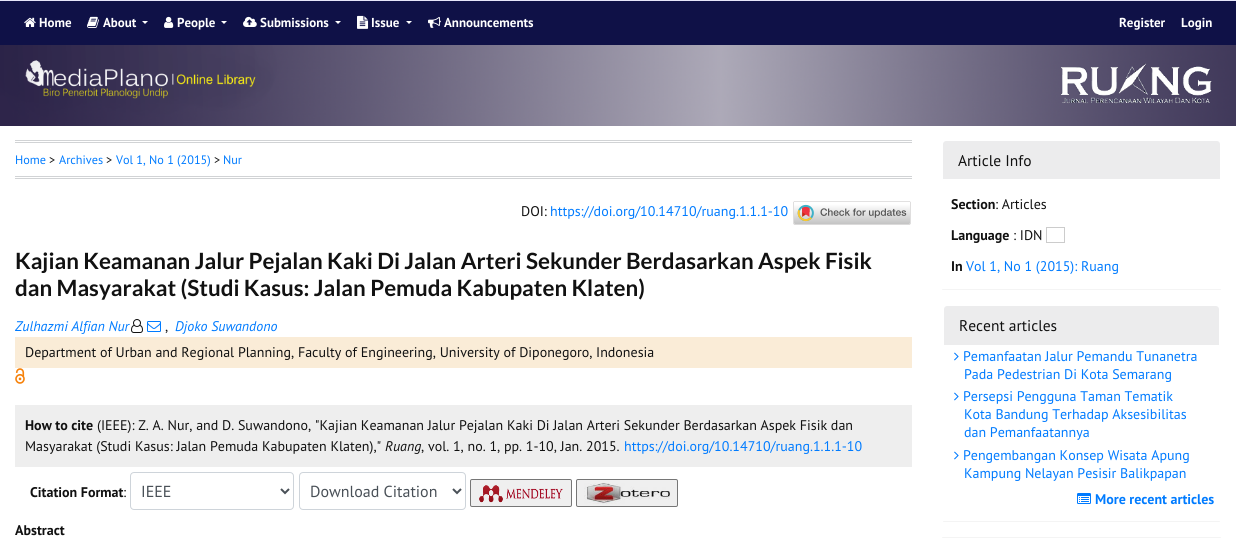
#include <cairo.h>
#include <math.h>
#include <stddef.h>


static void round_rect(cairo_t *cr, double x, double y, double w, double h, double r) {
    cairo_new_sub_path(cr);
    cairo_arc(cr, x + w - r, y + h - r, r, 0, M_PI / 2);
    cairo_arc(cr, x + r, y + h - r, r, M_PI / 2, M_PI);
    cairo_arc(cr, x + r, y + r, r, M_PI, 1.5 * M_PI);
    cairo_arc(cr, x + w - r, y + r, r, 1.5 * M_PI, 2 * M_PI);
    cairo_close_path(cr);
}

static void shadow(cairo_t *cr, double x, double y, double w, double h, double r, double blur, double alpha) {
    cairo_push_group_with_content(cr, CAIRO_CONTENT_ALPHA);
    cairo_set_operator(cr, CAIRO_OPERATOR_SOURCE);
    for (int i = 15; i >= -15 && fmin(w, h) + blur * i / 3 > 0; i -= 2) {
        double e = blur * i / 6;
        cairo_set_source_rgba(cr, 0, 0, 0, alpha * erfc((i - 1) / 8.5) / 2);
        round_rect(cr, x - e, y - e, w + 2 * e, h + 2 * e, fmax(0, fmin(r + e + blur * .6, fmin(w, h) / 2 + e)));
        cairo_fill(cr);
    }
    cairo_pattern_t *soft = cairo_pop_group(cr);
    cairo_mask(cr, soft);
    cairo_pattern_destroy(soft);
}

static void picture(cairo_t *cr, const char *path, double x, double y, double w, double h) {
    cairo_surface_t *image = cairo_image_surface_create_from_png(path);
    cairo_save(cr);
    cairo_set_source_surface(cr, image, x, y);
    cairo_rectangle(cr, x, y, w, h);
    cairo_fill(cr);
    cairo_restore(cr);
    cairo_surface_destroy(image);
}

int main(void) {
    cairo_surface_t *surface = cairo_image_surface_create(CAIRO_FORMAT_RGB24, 1236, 550);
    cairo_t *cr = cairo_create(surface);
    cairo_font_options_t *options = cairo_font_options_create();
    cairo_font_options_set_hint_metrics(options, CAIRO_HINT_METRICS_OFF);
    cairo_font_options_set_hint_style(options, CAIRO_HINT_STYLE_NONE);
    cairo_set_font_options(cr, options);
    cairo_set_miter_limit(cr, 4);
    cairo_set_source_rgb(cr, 0.902, 0.902, 0.98);
    cairo_paint(cr);
    cairo_set_source_rgb(cr, 1, 1, 1);
    cairo_rectangle(cr, 0, 126, 1236, 424);
    cairo_fill(cr);
    cairo_set_source_rgb(cr, 0.059, 0.067, 0.278);
    cairo_rectangle(cr, 0, 1, 1236, 44);
    cairo_fill(cr);
    picture(cr, "img1.png", 24, 17, 12, 10);
    cairo_select_font_face(cr, "PT Sans", CAIRO_FONT_SLANT_NORMAL, CAIRO_FONT_WEIGHT_BOLD);
    cairo_set_font_size(cr, 13);
    cairo_set_source_rgb(cr, 1, 1, 1);
    cairo_move_to(cr, 39, 27);
    cairo_show_text(cr, "Home");
    picture(cr, "img2.png", 87, 16, 12, 12);
    cairo_move_to(cr, 103, 27);
    cairo_show_text(cr, "About");
    cairo_new_path(cr);
    cairo_move_to(cr, 142, 21);
    cairo_line_to(cr, 148, 21);
    cairo_line_to(cr, 145, 24);
    cairo_close_path(cr);
    cairo_fill(cr);
    picture(cr, "img3.png", 164, 16, 10, 12);
    cairo_move_to(cr, 177, 27);
    cairo_show_text(cr, "People");
    cairo_new_path(cr);
    cairo_move_to(cr, 221, 21);
    cairo_line_to(cr, 227, 21);
    cairo_line_to(cr, 224, 24);
    cairo_close_path(cr);
    cairo_fill(cr);
    picture(cr, "img4.png", 243, 16, 14, 11);
    cairo_move_to(cr, 260, 27);
    cairo_show_text(cr, "Submissions");
    cairo_new_path(cr);
    cairo_move_to(cr, 335, 21);
    cairo_line_to(cr, 341, 21);
    cairo_line_to(cr, 338, 24);
    cairo_close_path(cr);
    cairo_fill(cr);
    picture(cr, "img5.png", 357, 15, 12, 14);
    cairo_move_to(cr, 371, 27);
    cairo_show_text(cr, "Issue");
    cairo_new_path(cr);
    cairo_move_to(cr, 406, 21);
    cairo_line_to(cr, 412, 21);
    cairo_line_to(cr, 409, 24);
    cairo_close_path(cr);
    cairo_fill(cr);
    picture(cr, "img6.png", 428, 16, 13, 12);
    cairo_move_to(cr, 444, 27);
    cairo_show_text(cr, "Announcements");
    cairo_move_to(cr, 1119, 27);
    cairo_show_text(cr, "Register");
    cairo_move_to(cr, 1181, 27);
    cairo_show_text(cr, "Login");
    picture(cr, "img7.png", 0, 45, 1236, 81);
    cairo_set_source_rgb(cr, 0.82, 0.827, 0.835);
    cairo_rectangle(cr, 15, 140, 897, 1);
    cairo_fill(cr);
    cairo_rectangle(cr, 15, 142, 897, 1);
    cairo_fill(cr);
    cairo_rectangle(cr, 15, 176, 897, 1);
    cairo_fill(cr);
    cairo_rectangle(cr, 15, 178, 897, 1);
    cairo_fill(cr);
    cairo_select_font_face(cr, "PT Sans", CAIRO_FONT_SLANT_NORMAL, CAIRO_FONT_WEIGHT_NORMAL);
    cairo_set_font_size(cr, 12.25);
    cairo_set_source_rgb(cr, 0, 0.482, 1);
    cairo_move_to(cr, 15, 164);
    cairo_show_text(cr, "Home");
    cairo_set_source_rgb(cr, 0.067, 0.067, 0.067);
    cairo_move_to(cr, 49, 164);
    cairo_show_text(cr, ">");
    cairo_set_source_rgb(cr, 0, 0.482, 1);
    cairo_move_to(cr, 59, 164);
    cairo_show_text(cr, "Archives");
    cairo_set_source_rgb(cr, 0.067, 0.067, 0.067);
    cairo_move_to(cr, 106, 164);
    cairo_show_text(cr, ">");
    cairo_set_source_rgb(cr, 0, 0.482, 1);
    cairo_move_to(cr, 116, 164);
    cairo_show_text(cr, "Vol 1, No 1 (2015)");
    cairo_set_source_rgb(cr, 0.067, 0.067, 0.067);
    cairo_move_to(cr, 214, 164);
    cairo_show_text(cr, ">");
    cairo_set_source_rgb(cr, 0, 0.482, 1);
    cairo_move_to(cr, 223, 164);
    cairo_show_text(cr, "Nur");
    cairo_set_font_size(cr, 14);
    cairo_set_source_rgb(cr, 0.067, 0.067, 0.067);
    cairo_move_to(cr, 521, 216);
    cairo_show_text(cr, "DOI:");
    cairo_set_source_rgb(cr, 0, 0.482, 1);
    cairo_move_to(cr, 550, 216);
    cairo_show_text(cr, "https://doi.org/10.14710/ruang.1.1.1-10");
    picture(cr, "img8.png", 793, 201, 118, 24);
    cairo_select_font_face(cr, "Lato", CAIRO_FONT_SLANT_NORMAL, CAIRO_FONT_WEIGHT_BOLD);
    cairo_set_font_size(cr, 22.4);
    cairo_set_source_rgb(cr, 0.067, 0.067, 0.067);
    cairo_move_to(cr, 15, 269);
    cairo_show_text(cr, "Kajian Keamanan Jalur Pejalan Kaki Di Jalan Arteri Sekunder Berdasarkan Aspek Fisik");
    cairo_move_to(cr, 15, 296);
    cairo_show_text(cr, "dan Masyarakat (Studi Kasus: Jalan Pemuda Kabupaten Klaten)");
    cairo_select_font_face(cr, "PT Sans", CAIRO_FONT_SLANT_ITALIC, CAIRO_FONT_WEIGHT_NORMAL);
    cairo_set_font_size(cr, 14);
    cairo_set_source_rgb(cr, 0, 0.482, 1);
    cairo_move_to(cr, 15, 331);
    cairo_show_text(cr, "Zulhazmi Alfian Nur");
    picture(cr, "img9.png", 131, 319, 12, 14);
    picture(cr, "img10.png", 147, 321, 14, 11);
    cairo_select_font_face(cr, "PT Sans", CAIRO_FONT_SLANT_NORMAL, CAIRO_FONT_WEIGHT_NORMAL);
    cairo_set_source_rgb(cr, 0.067, 0.067, 0.067);
    cairo_move_to(cr, 165, 331);
    cairo_show_text(cr, ",");
    cairo_select_font_face(cr, "PT Sans", CAIRO_FONT_SLANT_ITALIC, CAIRO_FONT_WEIGHT_NORMAL);
    cairo_set_source_rgb(cr, 0, 0.482, 1);
    cairo_move_to(cr, 175, 331);
    cairo_show_text(cr, "Djoko Suwandono");
    cairo_set_source_rgb(cr, 0.98, 0.922, 0.843);
    cairo_rectangle(cr, 15, 337, 897, 31);
    cairo_fill(cr);
    cairo_select_font_face(cr, "PT Sans", CAIRO_FONT_SLANT_NORMAL, CAIRO_FONT_WEIGHT_NORMAL);
    cairo_set_source_rgb(cr, 0.067, 0.067, 0.067);
    cairo_move_to(cr, 25, 357);
    cairo_show_text(cr, "Department of Urban and Regional Planning, Faculty of Engineering, University of Diponegoro, Indonesia");
    picture(cr, "img11.png", 15, 368, 10, 16);
    cairo_set_source_rgb(cr, 0.933, 0.933, 0.933);
    cairo_rectangle(cr, 15, 405, 897, 62);
    cairo_fill(cr);
    cairo_select_font_face(cr, "PT Sans", CAIRO_FONT_SLANT_NORMAL, CAIRO_FONT_WEIGHT_BOLD);
    cairo_set_source_rgb(cr, 0.067, 0.067, 0.067);
    cairo_move_to(cr, 25, 430);
    cairo_show_text(cr, "How to cite");
    cairo_select_font_face(cr, "PT Sans", CAIRO_FONT_SLANT_NORMAL, CAIRO_FONT_WEIGHT_NORMAL);
    cairo_move_to(cr, 97, 430);
    cairo_show_text(cr, "(IEEE): Z. A. Nur, and D. Suwandono, \"Kajian Keamanan Jalur Pejalan Kaki Di Jalan Arteri Sekunder Berdasarkan Aspek Fisik dan");
    cairo_move_to(cr, 25, 451);
    cairo_show_text(cr, "Masyarakat (Studi Kasus: Jalan Pemuda Kabupaten Klaten),\"");
    cairo_select_font_face(cr, "PT Sans", CAIRO_FONT_SLANT_ITALIC, CAIRO_FONT_WEIGHT_NORMAL);
    cairo_move_to(cr, 385, 451);
    cairo_show_text(cr, "Ruang");
    cairo_select_font_face(cr, "PT Sans", CAIRO_FONT_SLANT_NORMAL, CAIRO_FONT_WEIGHT_NORMAL);
    cairo_move_to(cr, 421, 451);
    cairo_show_text(cr, ", vol. 1, no. 1, pp. 1-10, Jan. 2015.");
    cairo_set_source_rgb(cr, 0, 0.482, 1);
    cairo_move_to(cr, 624, 451);
    cairo_show_text(cr, "https://doi.org/10.14710/ruang.1.1.1-10");
    cairo_select_font_face(cr, "PT Sans", CAIRO_FONT_SLANT_NORMAL, CAIRO_FONT_WEIGHT_BOLD);
    cairo_set_source_rgb(cr, 0.067, 0.067, 0.067);
    cairo_move_to(cr, 30, 497);
    cairo_show_text(cr, "Citation Format");
    cairo_select_font_face(cr, "PT Sans", CAIRO_FONT_SLANT_NORMAL, CAIRO_FONT_WEIGHT_NORMAL);
    cairo_move_to(cr, 123, 497);
    cairo_show_text(cr, ":");
    round_rect(cr, 130.5, 472.5, 163, 37, 3.5);
    cairo_set_source_rgb(cr, 0.808, 0.831, 0.855);
    cairo_set_line_width(cr, 1);
    cairo_stroke(cr);
    cairo_new_path(cr);
    cairo_move_to(cr, 281, 489);
    cairo_line_to(cr, 285, 493);
    cairo_line_to(cr, 289, 489);
    cairo_set_source_rgb(cr, 0.286, 0.314, 0.341);
    cairo_set_line_width(cr, 2);
    cairo_stroke(cr);
    cairo_set_font_size(cr, 16);
    cairo_move_to(cr, 141, 497);
    cairo_show_text(cr, "IEEE");
    round_rect(cr, 299.5, 472.5, 166, 37, 3.5);
    cairo_set_source_rgb(cr, 0.808, 0.831, 0.855);
    cairo_set_line_width(cr, 1);
    cairo_stroke(cr);
    cairo_new_path(cr);
    cairo_move_to(cr, 453, 489);
    cairo_line_to(cr, 457, 493);
    cairo_line_to(cr, 461, 489);
    cairo_set_source_rgb(cr, 0.286, 0.314, 0.341);
    cairo_set_line_width(cr, 2);
    cairo_stroke(cr);
    cairo_move_to(cr, 310, 497);
    cairo_show_text(cr, "Download Citation");
    cairo_set_source_rgb(cr, 0.937, 0.937, 0.937);
    round_rect(cr, 470.5, 479.5, 101, 27, 1.5);
    cairo_fill_preserve(cr);
    cairo_set_source_rgb(cr, 0.463, 0.463, 0.463);
    cairo_set_line_width(cr, 1);
    cairo_stroke(cr);
    picture(cr, "img12.png", 479, 485, 84, 18);
    cairo_set_source_rgb(cr, 0.937, 0.937, 0.937);
    round_rect(cr, 576.5, 479.5, 101, 27, 1.5);
    cairo_fill_preserve(cr);
    cairo_set_source_rgb(cr, 0.463, 0.463, 0.463);
    cairo_stroke(cr);
    picture(cr, "img13.png", 584, 483, 86, 21);
    cairo_select_font_face(cr, "PT Sans", CAIRO_FONT_SLANT_NORMAL, CAIRO_FONT_WEIGHT_BOLD);
    cairo_set_font_size(cr, 14);
    cairo_set_source_rgb(cr, 0.067, 0.067, 0.067);
    cairo_move_to(cr, 15, 535);
    cairo_show_text(cr, "Abstract");
    cairo_save(cr);
    cairo_rectangle(cr, 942, 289, 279, 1);
    cairo_clip(cr);
    cairo_set_source_rgb(cr, 0, 0, 0);
    shadow(cr, 942, 141, 279, 149, 0, 0.5, 0.05);
    cairo_restore(cr);
    cairo_set_source_rgb(cr, 0.925, 0.925, 0.929);
    cairo_new_path(cr);
    cairo_move_to(cr, 946, 141);
    cairo_line_to(cr, 1217, 141);
    cairo_curve_to(cr, 1218.5, 141, 1220, 142.5, 1220, 144);
    cairo_line_to(cr, 1220, 179);
    cairo_line_to(cr, 943, 179);
    cairo_line_to(cr, 943, 144);
    cairo_curve_to(cr, 943, 142.5, 944.5, 141, 946, 141);
    cairo_close_path(cr);
    cairo_fill(cr);
    cairo_select_font_face(cr, "PT Sans", CAIRO_FONT_SLANT_NORMAL, CAIRO_FONT_WEIGHT_NORMAL);
    cairo_set_font_size(cr, 15.5);
    cairo_set_source_rgb(cr, 0.067, 0.067, 0.067);
    cairo_move_to(cr, 958, 166);
    cairo_show_text(cr, "Article Info");
    cairo_select_font_face(cr, "PT Sans", CAIRO_FONT_SLANT_NORMAL, CAIRO_FONT_WEIGHT_BOLD);
    cairo_set_font_size(cr, 14);
    cairo_move_to(cr, 951, 209);
    cairo_show_text(cr, "Section");
    cairo_select_font_face(cr, "PT Sans", CAIRO_FONT_SLANT_NORMAL, CAIRO_FONT_WEIGHT_NORMAL);
    cairo_move_to(cr, 995, 209);
    cairo_show_text(cr, ": Articles");
    cairo_select_font_face(cr, "PT Sans", CAIRO_FONT_SLANT_NORMAL, CAIRO_FONT_WEIGHT_BOLD);
    cairo_move_to(cr, 951, 240);
    cairo_show_text(cr, "Language");
    cairo_select_font_face(cr, "PT Sans", CAIRO_FONT_SLANT_NORMAL, CAIRO_FONT_WEIGHT_NORMAL);
    cairo_move_to(cr, 1013, 240);
    cairo_show_text(cr, ": IDN");
    cairo_rectangle(cr, 1046.5, 227.5, 18, 15);
    cairo_set_source_rgb(cr, 0.8, 0.8, 0.8);
    cairo_stroke(cr);
    cairo_select_font_face(cr, "PT Sans", CAIRO_FONT_SLANT_NORMAL, CAIRO_FONT_WEIGHT_BOLD);
    cairo_set_source_rgb(cr, 0.067, 0.067, 0.067);
    cairo_move_to(cr, 951, 271);
    cairo_show_text(cr, "In");
    cairo_select_font_face(cr, "PT Sans", CAIRO_FONT_SLANT_NORMAL, CAIRO_FONT_WEIGHT_NORMAL);
    cairo_set_source_rgb(cr, 0, 0.482, 1);
    cairo_move_to(cr, 966, 271);
    cairo_show_text(cr, "Vol 1, No 1 (2015): Ruang");
    cairo_save(cr);
    cairo_rectangle(cr, 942, 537, 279, 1);
    cairo_clip(cr);
    cairo_set_source_rgb(cr, 0, 0, 0);
    shadow(cr, 942, 305, 279, 233, 0, 0.5, 0.05);
    cairo_restore(cr);
    cairo_save(cr);
    cairo_rectangle(cr, 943, 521, 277, 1);
    cairo_clip(cr);
    cairo_set_source_rgb(cr, 0, 0, 0);
    shadow(cr, 943, 306, 277, 216, 0, 0.5, 0.05);
    cairo_restore(cr);
    cairo_set_source_rgb(cr, 0.925, 0.925, 0.929);
    cairo_new_path(cr);
    cairo_move_to(cr, 947, 306);
    cairo_line_to(cr, 1216, 306);
    cairo_curve_to(cr, 1217.5, 306, 1219, 307.5, 1219, 309);
    cairo_line_to(cr, 1219, 345);
    cairo_line_to(cr, 944, 345);
    cairo_line_to(cr, 944, 309);
    cairo_curve_to(cr, 944, 307.5, 945.5, 306, 947, 306);
    cairo_close_path(cr);
    cairo_fill(cr);
    cairo_set_font_size(cr, 15.5);
    cairo_set_source_rgb(cr, 0.067, 0.067, 0.067);
    cairo_move_to(cr, 959, 331);
    cairo_show_text(cr, "Recent articles");
    picture(cr, "img14.png", 954, 352, 5, 9);
    cairo_set_font_size(cr, 14);
    cairo_set_source_rgb(cr, 0, 0.482, 1);
    cairo_move_to(cr, 963, 361);
    cairo_show_text(cr, "Pemanfaatan Jalur Pemandu Tunanetra");
    cairo_move_to(cr, 964, 379);
    cairo_show_text(cr, "Pada Pedestrian Di Kota Semarang");
    picture(cr, "img14.png", 954, 392, 5, 9);
    cairo_move_to(cr, 963, 401);
    cairo_show_text(cr, "Persepsi Pengguna Taman Tematik");
    cairo_move_to(cr, 964, 419);
    cairo_show_text(cr, "Kota Bandung Terhadap Aksesibilitas");
    cairo_move_to(cr, 964, 437);
    cairo_show_text(cr, "dan Pemanfaatannya");
    picture(cr, "img14.png", 954, 451, 5, 9);
    cairo_move_to(cr, 963, 460);
    cairo_show_text(cr, "Pengembangan Konsep Wisata Apung");
    cairo_move_to(cr, 964, 478);
    cairo_show_text(cr, "Kampung Nelayan Pesisir Balikpapan");
    picture(cr, "img15.png", 1077, 493, 14, 11);
    cairo_select_font_face(cr, "PT Sans", CAIRO_FONT_SLANT_NORMAL, CAIRO_FONT_WEIGHT_BOLD);
    cairo_move_to(cr, 1095, 504);
    cairo_show_text(cr, "More recent articles");
    cairo_surface_write_to_png(surface, "page.png");
    cairo_font_options_destroy(options);
    cairo_destroy(cr);
    cairo_surface_destroy(surface);
    return 0;
}
